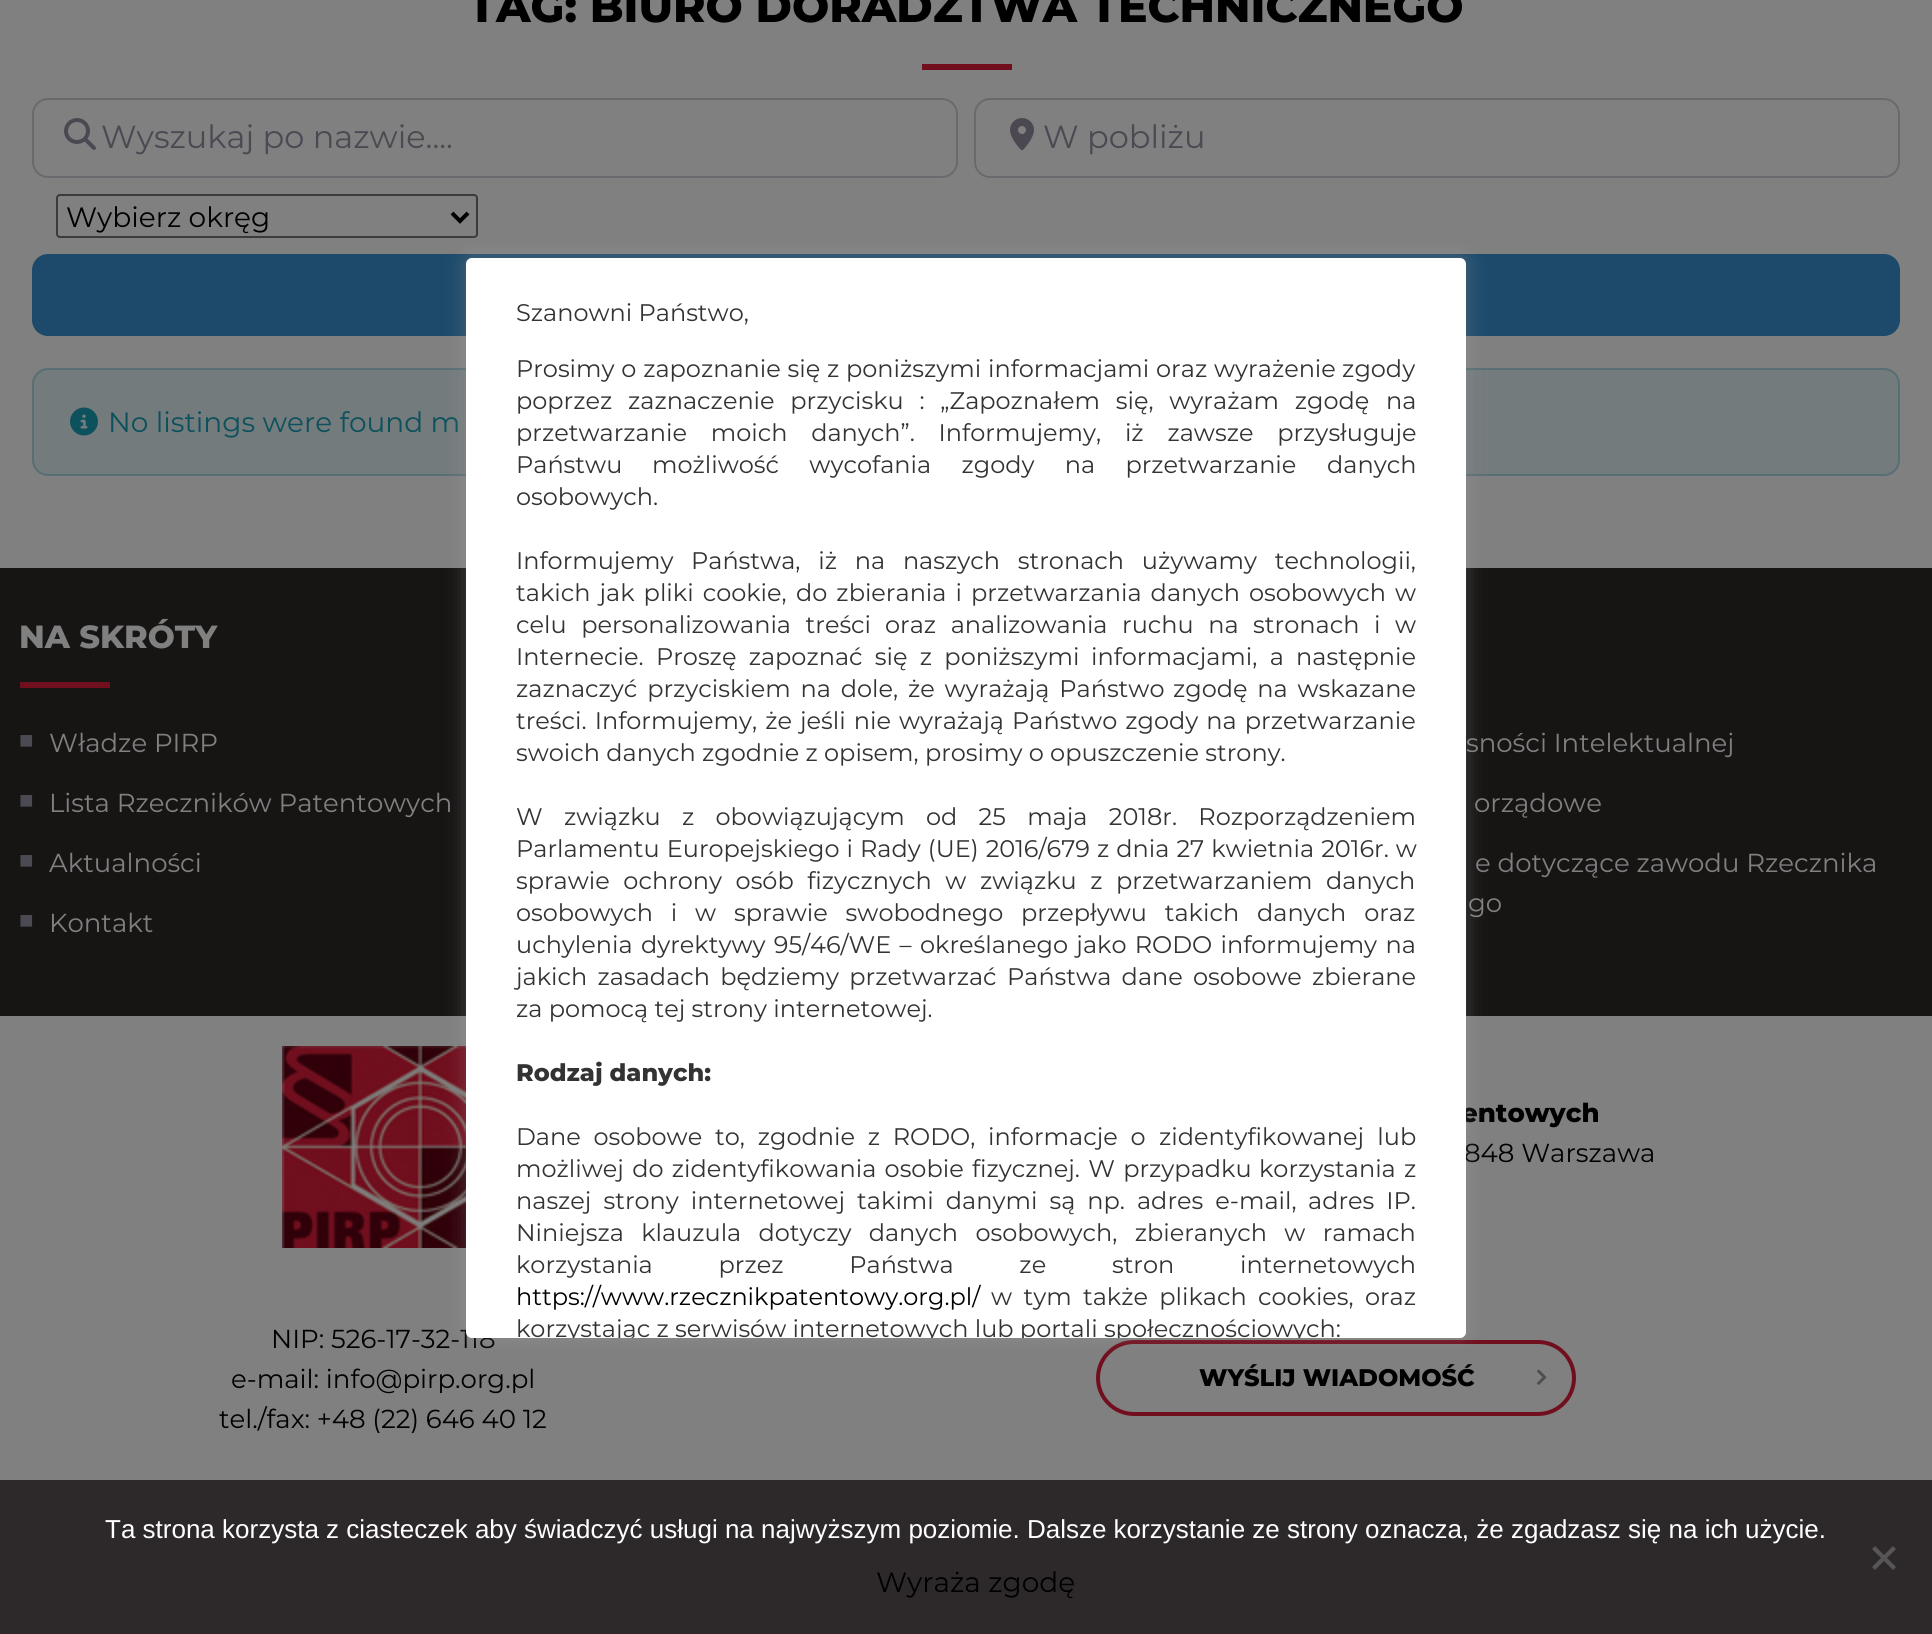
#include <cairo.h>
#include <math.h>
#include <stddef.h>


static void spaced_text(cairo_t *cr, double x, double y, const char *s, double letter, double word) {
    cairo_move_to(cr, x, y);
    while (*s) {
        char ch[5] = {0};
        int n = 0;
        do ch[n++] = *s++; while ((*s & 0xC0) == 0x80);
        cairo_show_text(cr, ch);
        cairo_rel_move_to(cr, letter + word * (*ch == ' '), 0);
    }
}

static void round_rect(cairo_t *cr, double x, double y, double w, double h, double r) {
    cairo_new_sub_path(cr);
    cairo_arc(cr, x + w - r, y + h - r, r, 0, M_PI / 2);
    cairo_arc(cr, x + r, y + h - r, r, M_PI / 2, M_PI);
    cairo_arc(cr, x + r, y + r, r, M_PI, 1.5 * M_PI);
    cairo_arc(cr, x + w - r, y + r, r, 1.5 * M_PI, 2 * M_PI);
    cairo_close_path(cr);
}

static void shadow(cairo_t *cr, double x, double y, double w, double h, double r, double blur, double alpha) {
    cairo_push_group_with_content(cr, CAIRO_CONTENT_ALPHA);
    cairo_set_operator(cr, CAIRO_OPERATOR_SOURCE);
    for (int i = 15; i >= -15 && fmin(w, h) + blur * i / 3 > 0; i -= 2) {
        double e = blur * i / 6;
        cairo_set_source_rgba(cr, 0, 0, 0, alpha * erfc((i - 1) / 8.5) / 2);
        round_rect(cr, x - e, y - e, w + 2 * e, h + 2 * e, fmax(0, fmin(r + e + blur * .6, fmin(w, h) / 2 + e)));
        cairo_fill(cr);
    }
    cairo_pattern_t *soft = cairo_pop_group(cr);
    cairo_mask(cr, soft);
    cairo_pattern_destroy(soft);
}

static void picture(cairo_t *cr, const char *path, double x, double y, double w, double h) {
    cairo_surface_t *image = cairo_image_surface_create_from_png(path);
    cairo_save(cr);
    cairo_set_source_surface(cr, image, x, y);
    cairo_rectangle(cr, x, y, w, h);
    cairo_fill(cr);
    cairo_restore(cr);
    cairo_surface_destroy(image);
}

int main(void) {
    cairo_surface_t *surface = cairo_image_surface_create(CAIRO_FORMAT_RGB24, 1932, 1634);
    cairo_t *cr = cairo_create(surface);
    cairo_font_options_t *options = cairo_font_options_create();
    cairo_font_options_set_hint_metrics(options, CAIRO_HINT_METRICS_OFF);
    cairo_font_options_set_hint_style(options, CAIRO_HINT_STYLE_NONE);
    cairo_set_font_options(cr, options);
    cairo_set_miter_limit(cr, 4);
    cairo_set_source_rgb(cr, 0.502, 0.502, 0.502);
    cairo_paint(cr);
    cairo_select_font_face(cr, "Montserrat ExtraBold", CAIRO_FONT_SLANT_NORMAL, CAIRO_FONT_WEIGHT_NORMAL);
    cairo_set_font_size(cr, 44);
    cairo_set_source_rgb(cr, 0, 0, 0);
    cairo_move_to(cr, 468, 22);
    cairo_show_text(cr, "TAG: BIURO DORADZTWA TECHNICZNEGO");
    cairo_set_source_rgb(cr, 0.443, 0.059, 0.118);
    cairo_rectangle(cr, 922, 64, 90, 6);
    cairo_fill(cr);
    round_rect(cr, 33, 99, 924, 78, 15);
    cairo_set_source_rgb(cr, 0.42, 0.412, 0.431);
    cairo_stroke(cr);
    picture(cr, "img1.png", 64, 118, 32, 32);
    cairo_select_font_face(cr, "Montserrat", CAIRO_FONT_SLANT_NORMAL, CAIRO_FONT_WEIGHT_NORMAL);
    cairo_set_font_size(cr, 32);
    cairo_set_source_rgb(cr, 0.294, 0.286, 0.322);
    cairo_move_to(cr, 101, 148);
    cairo_show_text(cr, "Wyszukaj po nazwie....");
    round_rect(cr, 975, 99, 924, 78, 15);
    cairo_set_source_rgb(cr, 0.42, 0.412, 0.431);
    cairo_stroke(cr);
    picture(cr, "img2.png", 1010, 118, 24, 33);
    cairo_set_source_rgb(cr, 0.294, 0.286, 0.322);
    cairo_move_to(cr, 1043, 148);
    cairo_show_text(cr, "W pobliżu");
    round_rect(cr, 57, 195, 420, 42, 3);
    cairo_set_source_rgb(cr, 0.231, 0.231, 0.231);
    cairo_stroke(cr);
    cairo_new_path(cr);
    cairo_move_to(cr, 452, 213);
    cairo_line_to(cr, 460, 221);
    cairo_line_to(cr, 468, 213);
    cairo_set_source_rgb(cr, 0, 0, 0);
    cairo_set_line_width(cr, 4);
    cairo_stroke(cr);
    cairo_set_font_size(cr, 28);
    cairo_move_to(cr, 66, 227);
    cairo_show_text(cr, "Wybierz okręg");
    cairo_set_source_rgb(cr, 0.114, 0.29, 0.42);
    round_rect(cr, 33, 255, 1866, 80, 15);
    cairo_fill_preserve(cr);
    cairo_set_line_width(cr, 2);
    cairo_stroke(cr);
    cairo_set_source_rgb(cr, 0.455, 0.482, 0.486);
    round_rect(cr, 33, 369, 1866, 106, 15);
    cairo_fill_preserve(cr);
    cairo_set_source_rgb(cr, 0.341, 0.435, 0.451);
    cairo_stroke(cr);
    picture(cr, "img3.png", 70, 407, 28, 29);
    cairo_set_source_rgb(cr, 0.047, 0.318, 0.361);
    cairo_move_to(cr, 108, 432);
    cairo_show_text(cr, "No listings were found m");
    cairo_set_source_rgb(cr, 0.09, 0.082, 0.082);
    cairo_rectangle(cr, 0, 568, 1932, 448);
    cairo_fill(cr);
    cairo_select_font_face(cr, "Montserrat ExtraBold", CAIRO_FONT_SLANT_NORMAL, CAIRO_FONT_WEIGHT_NORMAL);
    cairo_set_font_size(cr, 32);
    cairo_set_source_rgb(cr, 0.502, 0.502, 0.502);
    cairo_move_to(cr, 19, 648);
    cairo_show_text(cr, "NA SKRÓTY");
    cairo_set_source_rgb(cr, 0.443, 0.059, 0.118);
    cairo_rectangle(cr, 20, 682, 90, 6);
    cairo_fill(cr);
    cairo_select_font_face(cr, "Liberation Sans", CAIRO_FONT_SLANT_NORMAL, CAIRO_FONT_WEIGHT_NORMAL);
    cairo_set_font_size(cr, 24);
    cairo_set_source_rgb(cr, 0.294, 0.286, 0.322);
    cairo_move_to(cr, 19, 748);
    cairo_show_text(cr, "■");
    cairo_select_font_face(cr, "Montserrat", CAIRO_FONT_SLANT_NORMAL, CAIRO_FONT_WEIGHT_NORMAL);
    cairo_set_font_size(cr, 26);
    cairo_set_source_rgb(cr, 0.502, 0.502, 0.502);
    cairo_move_to(cr, 49, 752);
    cairo_show_text(cr, "Władze PIRP");
    cairo_select_font_face(cr, "Liberation Sans", CAIRO_FONT_SLANT_NORMAL, CAIRO_FONT_WEIGHT_NORMAL);
    cairo_set_font_size(cr, 24);
    cairo_set_source_rgb(cr, 0.294, 0.286, 0.322);
    cairo_move_to(cr, 19, 808);
    cairo_show_text(cr, "■");
    cairo_select_font_face(cr, "Montserrat", CAIRO_FONT_SLANT_NORMAL, CAIRO_FONT_WEIGHT_NORMAL);
    cairo_set_font_size(cr, 26);
    cairo_set_source_rgb(cr, 0.502, 0.502, 0.502);
    cairo_move_to(cr, 49, 812);
    cairo_show_text(cr, "Lista Rzeczników Patentowych");
    cairo_select_font_face(cr, "Liberation Sans", CAIRO_FONT_SLANT_NORMAL, CAIRO_FONT_WEIGHT_NORMAL);
    cairo_set_font_size(cr, 24);
    cairo_set_source_rgb(cr, 0.294, 0.286, 0.322);
    cairo_move_to(cr, 19, 868);
    cairo_show_text(cr, "■");
    cairo_select_font_face(cr, "Montserrat", CAIRO_FONT_SLANT_NORMAL, CAIRO_FONT_WEIGHT_NORMAL);
    cairo_set_font_size(cr, 26);
    cairo_set_source_rgb(cr, 0.502, 0.502, 0.502);
    cairo_move_to(cr, 49, 872);
    cairo_show_text(cr, "Aktualności");
    cairo_select_font_face(cr, "Liberation Sans", CAIRO_FONT_SLANT_NORMAL, CAIRO_FONT_WEIGHT_NORMAL);
    cairo_set_font_size(cr, 24);
    cairo_set_source_rgb(cr, 0.294, 0.286, 0.322);
    cairo_move_to(cr, 19, 928);
    cairo_show_text(cr, "■");
    cairo_select_font_face(cr, "Montserrat", CAIRO_FONT_SLANT_NORMAL, CAIRO_FONT_WEIGHT_NORMAL);
    cairo_set_font_size(cr, 26);
    cairo_set_source_rgb(cr, 0.502, 0.502, 0.502);
    cairo_move_to(cr, 49, 932);
    cairo_show_text(cr, "Kontakt");
    cairo_move_to(cr, 1466, 752);
    cairo_show_text(cr, "sności Intelektualnej");
    cairo_move_to(cr, 1474, 812);
    cairo_show_text(cr, "orządowe");
    cairo_move_to(cr, 1475, 872);
    cairo_show_text(cr, "e dotyczące zawodu Rzecznika");
    cairo_move_to(cr, 1468, 912);
    cairo_show_text(cr, "go");
    picture(cr, "img4.png", 282, 1046, 184, 202);
    cairo_select_font_face(cr, "Montserrat ExtraBold", CAIRO_FONT_SLANT_NORMAL, CAIRO_FONT_WEIGHT_NORMAL);
    cairo_set_source_rgb(cr, 0, 0, 0);
    cairo_move_to(cr, 1461, 1122);
    cairo_show_text(cr, "entowych");
    cairo_select_font_face(cr, "Montserrat", CAIRO_FONT_SLANT_NORMAL, CAIRO_FONT_WEIGHT_NORMAL);
    cairo_move_to(cr, 1464, 1162);
    cairo_show_text(cr, "848 Warszawa");
    cairo_move_to(cr, 271, 1348);
    cairo_show_text(cr, "NIP: 526-17-32-118");
    cairo_move_to(cr, 231, 1388);
    cairo_show_text(cr, "e-mail: info@pirp.org.pl");
    cairo_move_to(cr, 219, 1428);
    cairo_show_text(cr, "tel./fax: +48 (22) 646 40 12");
    round_rect(cr, 1098, 1342, 476, 72, 36);
    cairo_set_source_rgb(cr, 0.443, 0.059, 0.118);
    cairo_set_line_width(cr, 4);
    cairo_stroke(cr);
    cairo_select_font_face(cr, "Montserrat ExtraBold", CAIRO_FONT_SLANT_NORMAL, CAIRO_FONT_WEIGHT_NORMAL);
    cairo_set_font_size(cr, 24);
    cairo_set_source_rgb(cr, 0, 0, 0);
    cairo_move_to(cr, 1199, 1386);
    cairo_show_text(cr, "WYŚLIJ WIADOMOŚĆ");
    picture(cr, "img5.png", 1537, 1369, 10, 16);
    cairo_set_source_rgb(cr, 0.675, 0.671, 0.671);
    shadow(cr, 466, 256, 1000, 1080, 6, 10, 0.3);
    cairo_set_source_rgb(cr, 1, 1, 1);
    round_rect(cr, 466, 258, 1000, 1080, 6);
    cairo_fill(cr);
    cairo_select_font_face(cr, "Montserrat", CAIRO_FONT_SLANT_NORMAL, CAIRO_FONT_WEIGHT_NORMAL);
    cairo_set_source_rgb(cr, 0.2, 0.2, 0.2);
    cairo_move_to(cr, 516, 321);
    cairo_show_text(cr, "Szanowni Państwo,");
    spaced_text(cr, 516, 377, "Prosimy o zapoznanie się z poniższymi informacjami oraz", 0, 0.5);
    cairo_move_to(cr, 1214, 377);
    cairo_show_text(cr, "wyrażenie zgody");
    spaced_text(cr, 516, 409, "poprzez zaznaczenie przycisku : „Zapoznałem się, wyrażam zgodę", 0, 9.5);
    cairo_move_to(cr, 1386, 409);
    cairo_show_text(cr, "na");
    spaced_text(cr, 516, 441, "przetwarzanie moich danych”. Informujemy, iż zawsze przysługuje", 0, 17.5);
    cairo_move_to(cr, 516, 473);
    cairo_show_text(cr, "Państwu");
    spaced_text(cr, 652, 473, "możliwość wycofania zgody na przetwarzanie", 0, 24);
    cairo_move_to(cr, 1327, 473);
    cairo_show_text(cr, "danych");
    cairo_move_to(cr, 516, 505);
    cairo_show_text(cr, "osobowych.");
    cairo_move_to(cr, 516, 569);
    cairo_show_text(cr, "Informujemy");
    spaced_text(cr, 691, 569, "Państwa, iż na naszych stronach używamy technologii,", 0, 11.5);
    spaced_text(cr, 516, 601, "takich jak pliki cookie,", 0, 2.75);
    spaced_text(cr, 796, 601, "do zbierania i przetwarzania danych osobowych w", 0, 2.75);
    spaced_text(cr, 516, 633, "celu personalizowania treści", 0, 8.25);
    spaced_text(cr, 885, 633, "oraz analizowania ruchu na stronach i w", 0, 8.25);
    cairo_move_to(cr, 516, 665);
    cairo_show_text(cr, "Internecie.");
    spaced_text(cr, 656, 665, "Proszę zapoznać się z poniższymi", 0, 6);
    spaced_text(cr, 1091, 665, "informacjami, a następnie", 0, 6);
    spaced_text(cr, 516, 697, "zaznaczyć przyciskiem na dole, że wyrażają Państwo", 0, 3.5);
    spaced_text(cr, 1173, 697, "zgodę na wskazane", 0, 3.5);
    spaced_text(cr, 516, 729, "treści. Informujemy, że", 0, 1.75);
    spaced_text(cr, 800, 729, "jeśli nie wyrażają Państwo zgody na przetwarzanie", 0, 1.75);
    cairo_move_to(cr, 516, 761);
    cairo_show_text(cr, "swoich danych zgodnie z opisem, prosimy o opuszczenie strony.");
    spaced_text(cr, 516, 825, "W związku z obowiązującym od 25 maja 2018r. Rozporządzeniem", 0, 15);
    spaced_text(cr, 516, 857, "Parlamentu Europejskiego i Rady (UE) 2016/679 z dnia 27 kwietnia 2016r. w", 0, 0.75);
    spaced_text(cr, 516, 889, "sprawie ochrony osób fizycznych w związku z przetwarzaniem danych", 0, 7.25);
    spaced_text(cr, 516, 921, "osobowych i w", 0, 11.5);
    spaced_text(cr, 734, 921, "sprawie swobodnego przepływu takich danych oraz", 0, 11.5);
    spaced_text(cr, 516, 953, "uchylenia dyrektywy 95/46/WE –", 0, 2);
    spaced_text(cr, 920, 953, "określanego jako RODO informujemy na", 0, 2);
    spaced_text(cr, 516, 985, "jakich zasadach będziemy przetwarzać", 0, 4);
    spaced_text(cr, 1007, 985, "Państwa dane osobowe zbierane", 0, 4);
    cairo_move_to(cr, 516, 1017);
    cairo_show_text(cr, "za pomocą tej strony internetowej.");
    cairo_select_font_face(cr, "Montserrat ExtraBold", CAIRO_FONT_SLANT_NORMAL, CAIRO_FONT_WEIGHT_NORMAL);
    cairo_move_to(cr, 516, 1081);
    cairo_show_text(cr, "Rodzaj danych:");
    cairo_select_font_face(cr, "Montserrat", CAIRO_FONT_SLANT_NORMAL, CAIRO_FONT_WEIGHT_NORMAL);
    spaced_text(cr, 516, 1145, "Dane osobowe to, zgodnie z RODO, informacje o", 0, 6.5);
    spaced_text(cr, 1159, 1145, "zidentyfikowanej lub", 0, 7);
    spaced_text(cr, 516, 1177, "możliwej do zidentyfikowania osobie fizycznej. W przypadku", 0, 2);
    spaced_text(cr, 1259, 1177, "korzystania z", 0, 2);
    spaced_text(cr, 516, 1209, "naszej strony internetowej takimi danymi są np. adres e-mail,", 0, 5.75);
    spaced_text(cr, 1308, 1209, "adres IP.", 0, 5.75);
    spaced_text(cr, 516, 1241, "Niniejsza klauzula dotyczy danych osobowych, zbieranych w ramach", 0, 11);
    spaced_text(cr, 516, 1273, "korzystania przez Państwa ze stron internetowych", 0, 59.5);
    cairo_set_source_rgb(cr, 0, 0, 0);
    cairo_move_to(cr, 516, 1305);
    cairo_show_text(cr, "https://www.rzecznikpatentowy.org.pl/");
    cairo_set_source_rgb(cr, 0.2, 0.2, 0.2);
    spaced_text(cr, 991, 1305, "w tym także plikach cookies, oraz", 0, 5);
    cairo_save(cr);
    round_rect(cr, 466, 258, 1000, 1080, 6);
    cairo_clip(cr);
    cairo_move_to(cr, 516, 1337);
    cairo_show_text(cr, "korzystając z serwisów internetowych lub portali społecznościowych:");
    cairo_restore(cr);
    cairo_set_source_rgb(cr, 0.176, 0.161, 0.165);
    cairo_rectangle(cr, 0, 1480, 1932, 154);
    cairo_fill(cr);
    cairo_select_font_face(cr, "Liberation Sans", CAIRO_FONT_SLANT_NORMAL, CAIRO_FONT_WEIGHT_NORMAL);
    cairo_set_font_size(cr, 26);
    cairo_set_source_rgb(cr, 1, 1, 1);
    cairo_move_to(cr, 105, 1538);
    cairo_show_text(cr, "Ta strona korzysta z ciasteczek aby świadczyć usługi na najwyższym poziomie. Dalsze korzystanie ze strony oznacza, że zgadzasz się na ich użycie.");
    cairo_set_source_rgb(cr, 0.341, 0.333, 0.333);
    cairo_new_path(cr);
    cairo_move_to(cr, 1893, 1546);
    cairo_line_to(cr, 1896, 1549);
    cairo_line_to(cr, 1875, 1570);
    cairo_line_to(cr, 1872, 1567);
    cairo_close_path(cr);
    cairo_fill(cr);
    cairo_new_path(cr);
    cairo_move_to(cr, 1872, 1549);
    cairo_line_to(cr, 1875, 1546);
    cairo_line_to(cr, 1896, 1567);
    cairo_line_to(cr, 1893, 1570);
    cairo_close_path(cr);
    cairo_fill(cr);
    cairo_select_font_face(cr, "Montserrat", CAIRO_FONT_SLANT_NORMAL, CAIRO_FONT_WEIGHT_NORMAL);
    cairo_set_font_size(cr, 28);
    cairo_set_source_rgb(cr, 0, 0, 0);
    cairo_move_to(cr, 876, 1592);
    cairo_show_text(cr, "Wyraża zgodę");
    cairo_surface_write_to_png(surface, "page.png");
    cairo_font_options_destroy(options);
    cairo_destroy(cr);
    cairo_surface_destroy(surface);
    return 0;
}
